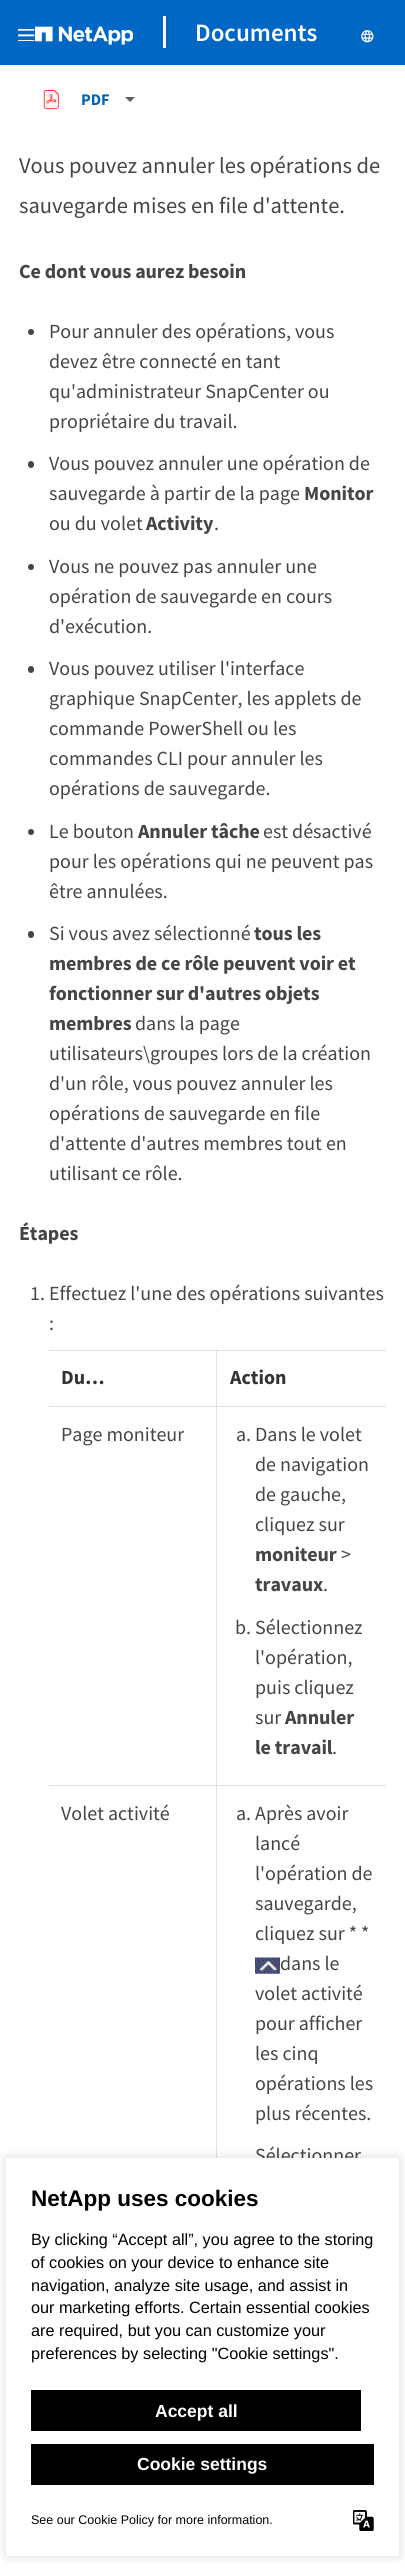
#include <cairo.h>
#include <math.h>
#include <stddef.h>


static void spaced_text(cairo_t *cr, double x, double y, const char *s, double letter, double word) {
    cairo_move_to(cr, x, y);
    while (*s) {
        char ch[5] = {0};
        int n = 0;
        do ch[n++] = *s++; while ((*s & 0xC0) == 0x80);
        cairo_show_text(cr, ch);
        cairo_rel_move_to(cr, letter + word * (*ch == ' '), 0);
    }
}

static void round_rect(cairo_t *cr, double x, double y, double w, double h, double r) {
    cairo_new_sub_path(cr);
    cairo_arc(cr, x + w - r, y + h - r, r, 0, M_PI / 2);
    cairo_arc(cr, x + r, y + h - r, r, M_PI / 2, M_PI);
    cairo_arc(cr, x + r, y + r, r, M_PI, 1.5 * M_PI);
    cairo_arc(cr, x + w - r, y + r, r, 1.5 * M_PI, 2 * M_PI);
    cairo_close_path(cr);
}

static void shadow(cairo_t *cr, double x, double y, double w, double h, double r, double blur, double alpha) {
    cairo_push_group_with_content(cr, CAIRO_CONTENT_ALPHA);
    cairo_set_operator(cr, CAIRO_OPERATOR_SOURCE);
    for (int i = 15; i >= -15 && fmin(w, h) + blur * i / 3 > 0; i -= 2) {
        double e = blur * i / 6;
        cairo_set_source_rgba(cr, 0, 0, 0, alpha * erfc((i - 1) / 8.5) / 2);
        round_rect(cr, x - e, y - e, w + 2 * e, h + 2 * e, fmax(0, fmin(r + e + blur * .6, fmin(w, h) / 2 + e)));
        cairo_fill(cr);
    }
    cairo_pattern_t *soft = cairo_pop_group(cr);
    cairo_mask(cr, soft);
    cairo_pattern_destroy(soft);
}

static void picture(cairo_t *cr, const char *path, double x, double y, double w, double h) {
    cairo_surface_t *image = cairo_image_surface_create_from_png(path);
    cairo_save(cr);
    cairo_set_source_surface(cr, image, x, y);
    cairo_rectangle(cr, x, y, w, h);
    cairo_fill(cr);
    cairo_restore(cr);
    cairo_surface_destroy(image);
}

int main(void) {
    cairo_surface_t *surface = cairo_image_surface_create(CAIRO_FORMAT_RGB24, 405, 2568);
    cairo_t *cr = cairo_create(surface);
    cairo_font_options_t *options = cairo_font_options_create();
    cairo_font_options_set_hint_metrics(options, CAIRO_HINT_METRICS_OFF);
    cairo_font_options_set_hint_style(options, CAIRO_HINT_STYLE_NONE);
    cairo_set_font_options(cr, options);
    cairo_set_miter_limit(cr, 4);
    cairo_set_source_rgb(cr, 1, 1, 1);
    cairo_paint(cr);
    cairo_set_source_rgb(cr, 0, 0.404, 0.773);
    cairo_rectangle(cr, 0, 0, 405, 65);
    cairo_fill(cr);
    picture(cr, "img1.png", 18, 29, 17, 12);
    picture(cr, "img2.png", 35, 26, 98, 19);
    cairo_set_source_rgb(cr, 1, 1, 1);
    cairo_rectangle(cr, 163, 16, 3, 32);
    cairo_fill(cr);
    cairo_select_font_face(cr, "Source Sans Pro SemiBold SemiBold", CAIRO_FONT_SLANT_NORMAL, CAIRO_FONT_WEIGHT_NORMAL);
    cairo_set_font_size(cr, 25);
    cairo_move_to(cr, 195, 41);
    cairo_show_text(cr, "Documents");
    picture(cr, "img3.png", 361, 30, 13, 13);
    picture(cr, "img4.png", 43, 90, 16, 20);
    cairo_select_font_face(cr, "Source Sans Pro", CAIRO_FONT_SLANT_NORMAL, CAIRO_FONT_WEIGHT_BOLD);
    cairo_set_font_size(cr, 16.25);
    cairo_set_source_rgb(cr, 0, 0.396, 0.702);
    cairo_move_to(cr, 81, 105);
    cairo_show_text(cr, "PDF");
    cairo_set_source_rgb(cr, 0.369, 0.369, 0.369);
    cairo_new_path(cr);
    cairo_move_to(cr, 130, 102);
    cairo_line_to(cr, 125, 97);
    cairo_line_to(cr, 135, 97);
    cairo_close_path(cr);
    cairo_fill(cr);
    cairo_select_font_face(cr, "Source Sans Pro", CAIRO_FONT_SLANT_NORMAL, CAIRO_FONT_WEIGHT_NORMAL);
    cairo_set_font_size(cr, 22.5);
    cairo_set_source_rgb(cr, 0.271, 0.271, 0.271);
    cairo_move_to(cr, 19, 173);
    cairo_show_text(cr, "Vous pouvez annuler les opérations de");
    cairo_move_to(cr, 19, 213);
    cairo_show_text(cr, "sauvegarde mises en file d'attente.");
    cairo_select_font_face(cr, "Source Sans Pro", CAIRO_FONT_SLANT_NORMAL, CAIRO_FONT_WEIGHT_BOLD);
    cairo_set_font_size(cr, 20);
    spaced_text(cr, 19, 278, "Ce dont vous aurez besoin", -0.1, 0);
    cairo_new_path(cr);
    cairo_arc(cr, 31, 332, 3, 0, 2 * M_PI);
    cairo_fill(cr);
    cairo_select_font_face(cr, "Source Sans Pro", CAIRO_FONT_SLANT_NORMAL, CAIRO_FONT_WEIGHT_NORMAL);
    cairo_move_to(cr, 49, 338);
    cairo_show_text(cr, "Pour annuler des opérations, vous");
    cairo_move_to(cr, 49, 368);
    cairo_show_text(cr, "devez être connecté en tant");
    cairo_move_to(cr, 49, 398);
    cairo_show_text(cr, "qu'administrateur SnapCenter ou");
    cairo_move_to(cr, 49, 428);
    cairo_show_text(cr, "propriétaire du travail.");
    round_rect(cr, 28, 461, 6, 7, 3);
    cairo_fill(cr);
    cairo_move_to(cr, 49, 470);
    cairo_show_text(cr, "Vous pouvez annuler une opération de");
    cairo_move_to(cr, 49, 500);
    cairo_show_text(cr, "sauvegarde à partir de la page");
    cairo_select_font_face(cr, "Source Sans Pro", CAIRO_FONT_SLANT_NORMAL, CAIRO_FONT_WEIGHT_BOLD);
    spaced_text(cr, 304, 500, "Monitor", -0.1, 0);
    cairo_select_font_face(cr, "Source Sans Pro", CAIRO_FONT_SLANT_NORMAL, CAIRO_FONT_WEIGHT_NORMAL);
    cairo_move_to(cr, 49, 530);
    cairo_show_text(cr, "ou du volet");
    cairo_select_font_face(cr, "Source Sans Pro", CAIRO_FONT_SLANT_NORMAL, CAIRO_FONT_WEIGHT_BOLD);
    spaced_text(cr, 146, 530, "Activity", -0.1, 0);
    cairo_select_font_face(cr, "Source Sans Pro", CAIRO_FONT_SLANT_NORMAL, CAIRO_FONT_WEIGHT_NORMAL);
    cairo_move_to(cr, 214, 530);
    cairo_show_text(cr, ".");
    cairo_new_path(cr);
    cairo_arc(cr, 31, 567, 3, 0, 2 * M_PI);
    cairo_fill(cr);
    cairo_move_to(cr, 49, 573);
    cairo_show_text(cr, "Vous ne pouvez pas annuler une");
    cairo_move_to(cr, 49, 603);
    cairo_show_text(cr, "opération de sauvegarde en cours");
    cairo_move_to(cr, 49, 633);
    cairo_show_text(cr, "d'exécution.");
    round_rect(cr, 28, 666, 6, 7, 3);
    cairo_fill(cr);
    cairo_move_to(cr, 49, 675);
    cairo_show_text(cr, "Vous pouvez utiliser l'interface");
    cairo_move_to(cr, 49, 705);
    cairo_show_text(cr, "graphique SnapCenter, les applets de");
    cairo_move_to(cr, 49, 735);
    cairo_show_text(cr, "commande PowerShell ou les");
    cairo_move_to(cr, 49, 765);
    cairo_show_text(cr, "commandes CLI pour annuler les");
    cairo_move_to(cr, 49, 795);
    cairo_show_text(cr, "opérations de sauvegarde.");
    cairo_new_path(cr);
    cairo_arc(cr, 31, 832, 3, 0, 2 * M_PI);
    cairo_fill(cr);
    cairo_move_to(cr, 49, 838);
    cairo_show_text(cr, "Le bouton");
    cairo_select_font_face(cr, "Source Sans Pro", CAIRO_FONT_SLANT_NORMAL, CAIRO_FONT_WEIGHT_BOLD);
    spaced_text(cr, 138, 838, "Annuler tâche", -0.1, 0);
    cairo_select_font_face(cr, "Source Sans Pro", CAIRO_FONT_SLANT_NORMAL, CAIRO_FONT_WEIGHT_NORMAL);
    cairo_move_to(cr, 263, 838);
    cairo_show_text(cr, "est désactivé");
    cairo_move_to(cr, 49, 868);
    cairo_show_text(cr, "pour les opérations qui ne peuvent pas");
    cairo_move_to(cr, 49, 898);
    cairo_show_text(cr, "être annulées.");
    round_rect(cr, 28, 931, 6, 7, 3);
    cairo_fill(cr);
    cairo_move_to(cr, 49, 940);
    cairo_show_text(cr, "Si vous avez sélectionné");
    cairo_select_font_face(cr, "Source Sans Pro", CAIRO_FONT_SLANT_NORMAL, CAIRO_FONT_WEIGHT_BOLD);
    spaced_text(cr, 254, 940, "tous les", -0.1, 0);
    spaced_text(cr, 49, 970, "membres de ce rôle peuvent voir et", -0.1, 0);
    spaced_text(cr, 49, 1000, "fonctionner sur d'autres objets", -0.1, 0);
    spaced_text(cr, 49, 1030, "membres", -0.1, 0);
    cairo_select_font_face(cr, "Source Sans Pro", CAIRO_FONT_SLANT_NORMAL, CAIRO_FONT_WEIGHT_NORMAL);
    cairo_move_to(cr, 135, 1030);
    cairo_show_text(cr, "dans la page");
    cairo_move_to(cr, 49, 1060);
    cairo_show_text(cr, "utilisateurs\\groupes lors de la création");
    cairo_move_to(cr, 49, 1090);
    cairo_show_text(cr, "d'un rôle, vous pouvez annuler les");
    cairo_move_to(cr, 49, 1120);
    cairo_show_text(cr, "opérations de sauvegarde en file");
    cairo_move_to(cr, 49, 1150);
    cairo_show_text(cr, "d'attente d'autres membres tout en");
    cairo_move_to(cr, 49, 1180);
    cairo_show_text(cr, "utilisant ce rôle.");
    cairo_select_font_face(cr, "Source Sans Pro", CAIRO_FONT_SLANT_NORMAL, CAIRO_FONT_WEIGHT_BOLD);
    spaced_text(cr, 19, 1240, "Étapes", -0.1, 0);
    cairo_select_font_face(cr, "Source Sans Pro", CAIRO_FONT_SLANT_NORMAL, CAIRO_FONT_WEIGHT_NORMAL);
    cairo_move_to(cr, 30, 1300);
    cairo_show_text(cr, "1. Effectuez l'une des opérations suivantes");
    cairo_move_to(cr, 49, 1330);
    cairo_show_text(cr, ":");
    cairo_set_source_rgb(cr, 0.878, 0.878, 0.878);
    cairo_rectangle(cr, 49, 1350, 337, 1);
    cairo_fill(cr);
    cairo_rectangle(cr, 216, 1351, 1, 807);
    cairo_fill(cr);
    cairo_rectangle(cr, 49, 1406, 337, 1);
    cairo_fill(cr);
    cairo_select_font_face(cr, "Source Sans Pro", CAIRO_FONT_SLANT_NORMAL, CAIRO_FONT_WEIGHT_BOLD);
    cairo_set_source_rgb(cr, 0.2, 0.2, 0.2);
    cairo_move_to(cr, 61, 1384);
    cairo_show_text(cr, "Du…");
    cairo_move_to(cr, 230, 1384);
    cairo_show_text(cr, "Action");
    cairo_set_source_rgb(cr, 0.878, 0.878, 0.878);
    cairo_rectangle(cr, 49, 1785, 337, 1);
    cairo_fill(cr);
    cairo_select_font_face(cr, "Source Sans Pro", CAIRO_FONT_SLANT_NORMAL, CAIRO_FONT_WEIGHT_NORMAL);
    cairo_set_source_rgb(cr, 0.271, 0.271, 0.271);
    cairo_move_to(cr, 61, 1441);
    cairo_show_text(cr, "Page moniteur");
    cairo_move_to(cr, 236, 1441);
    cairo_show_text(cr, "a. Dans le volet");
    cairo_move_to(cr, 255, 1471);
    cairo_show_text(cr, "de navigation");
    cairo_move_to(cr, 255, 1501);
    cairo_show_text(cr, "de gauche,");
    cairo_move_to(cr, 255, 1531);
    cairo_show_text(cr, "cliquez sur");
    cairo_select_font_face(cr, "Source Sans Pro", CAIRO_FONT_SLANT_NORMAL, CAIRO_FONT_WEIGHT_BOLD);
    spaced_text(cr, 255, 1561, "moniteur", -0.1, 0);
    cairo_select_font_face(cr, "Source Sans Pro", CAIRO_FONT_SLANT_NORMAL, CAIRO_FONT_WEIGHT_NORMAL);
    cairo_move_to(cr, 341, 1561);
    cairo_show_text(cr, ">");
    cairo_select_font_face(cr, "Source Sans Pro", CAIRO_FONT_SLANT_NORMAL, CAIRO_FONT_WEIGHT_BOLD);
    spaced_text(cr, 255, 1591, "travaux", -0.1, 0);
    cairo_select_font_face(cr, "Source Sans Pro", CAIRO_FONT_SLANT_NORMAL, CAIRO_FONT_WEIGHT_NORMAL);
    cairo_move_to(cr, 323, 1591);
    cairo_show_text(cr, ".");
    cairo_move_to(cr, 235, 1634);
    cairo_show_text(cr, "b. Sélectionnez");
    cairo_move_to(cr, 255, 1664);
    cairo_show_text(cr, "l'opération,");
    cairo_move_to(cr, 255, 1694);
    cairo_show_text(cr, "puis cliquez");
    cairo_move_to(cr, 255, 1724);
    cairo_show_text(cr, "sur");
    cairo_select_font_face(cr, "Source Sans Pro", CAIRO_FONT_SLANT_NORMAL, CAIRO_FONT_WEIGHT_BOLD);
    spaced_text(cr, 285, 1724, "Annuler", -0.1, 0);
    spaced_text(cr, 255, 1754, "le travail", -0.1, 0);
    cairo_select_font_face(cr, "Source Sans Pro", CAIRO_FONT_SLANT_NORMAL, CAIRO_FONT_WEIGHT_NORMAL);
    cairo_move_to(cr, 332, 1754);
    cairo_show_text(cr, ".");
    cairo_move_to(cr, 61, 1820);
    cairo_show_text(cr, "Volet activité");
    cairo_move_to(cr, 236, 1820);
    cairo_show_text(cr, "a. Après avoir");
    cairo_move_to(cr, 255, 1850);
    cairo_show_text(cr, "lancé");
    cairo_move_to(cr, 255, 1880);
    cairo_show_text(cr, "l'opération de");
    cairo_move_to(cr, 255, 1910);
    cairo_show_text(cr, "sauvegarde,");
    cairo_move_to(cr, 255, 1940);
    cairo_show_text(cr, "cliquez sur * *");
    picture(cr, "img5.png", 255, 1957, 25, 17);
    cairo_move_to(cr, 280, 1970);
    cairo_show_text(cr, "dans le");
    cairo_move_to(cr, 255, 2000);
    cairo_show_text(cr, "volet activité");
    cairo_move_to(cr, 255, 2030);
    cairo_show_text(cr, "pour afficher");
    cairo_move_to(cr, 255, 2060);
    cairo_show_text(cr, "les cinq");
    cairo_move_to(cr, 255, 2090);
    cairo_show_text(cr, "opérations les");
    cairo_move_to(cr, 255, 2120);
    cairo_show_text(cr, "plus récentes.");
    cairo_move_to(cr, 255, 2162);
    cairo_show_text(cr, "Sélectionner");
    cairo_set_source_rgb(cr, 0, 0, 0);
    shadow(cr, 6, 2158, 393, 398, 0, 5, 0.15);
    cairo_set_source_rgb(cr, 1, 1, 1);
    cairo_rectangle(cr, 6, 2158, 393, 398);
    cairo_fill(cr);
    cairo_select_font_face(cr, "Liberation Sans", CAIRO_FONT_SLANT_NORMAL, CAIRO_FONT_WEIGHT_BOLD);
    cairo_set_font_size(cr, 22.5);
    cairo_set_source_rgb(cr, 0, 0, 0);
    cairo_move_to(cr, 31, 2206);
    cairo_show_text(cr, "NetApp uses cookies");
    cairo_select_font_face(cr, "Liberation Sans", CAIRO_FONT_SLANT_NORMAL, CAIRO_FONT_WEIGHT_NORMAL);
    cairo_set_font_size(cr, 16.25);
    cairo_move_to(cr, 31, 2245);
    cairo_show_text(cr, "By clicking “Accept all”, you agree to the storing");
    cairo_move_to(cr, 31, 2268);
    cairo_show_text(cr, "of cookies on your device to enhance site");
    cairo_move_to(cr, 31, 2291);
    cairo_show_text(cr, "navigation, analyze site usage, and assist in");
    cairo_move_to(cr, 31, 2313);
    cairo_show_text(cr, "our marketing efforts. Certain essential cookies");
    cairo_move_to(cr, 31, 2336);
    cairo_show_text(cr, "are required, but you can customize your");
    cairo_move_to(cr, 31, 2359);
    cairo_show_text(cr, "preferences by selecting \"Cookie settings\".");
    cairo_rectangle(cr, 31, 2390, 330, 41);
    cairo_fill(cr);
    cairo_select_font_face(cr, "Liberation Sans", CAIRO_FONT_SLANT_NORMAL, CAIRO_FONT_WEIGHT_BOLD);
    cairo_set_font_size(cr, 17.5);
    cairo_set_source_rgb(cr, 1, 1, 1);
    cairo_move_to(cr, 155, 2417);
    cairo_show_text(cr, "Accept all");
    cairo_set_source_rgb(cr, 0, 0, 0);
    cairo_rectangle(cr, 31, 2444, 343, 41);
    cairo_fill(cr);
    cairo_set_source_rgb(cr, 1, 1, 1);
    cairo_move_to(cr, 137, 2470);
    cairo_show_text(cr, "Cookie settings");
    cairo_select_font_face(cr, "Liberation Sans", CAIRO_FONT_SLANT_NORMAL, CAIRO_FONT_WEIGHT_NORMAL);
    cairo_set_font_size(cr, 12.5);
    cairo_set_source_rgb(cr, 0, 0, 0);
    cairo_move_to(cr, 31, 2524);
    cairo_show_text(cr, "See our Cookie Policy for more information.");
    picture(cr, "img6.png", 353, 2510, 21, 21);
    cairo_surface_write_to_png(surface, "page.png");
    cairo_font_options_destroy(options);
    cairo_destroy(cr);
    cairo_surface_destroy(surface);
    return 0;
}
